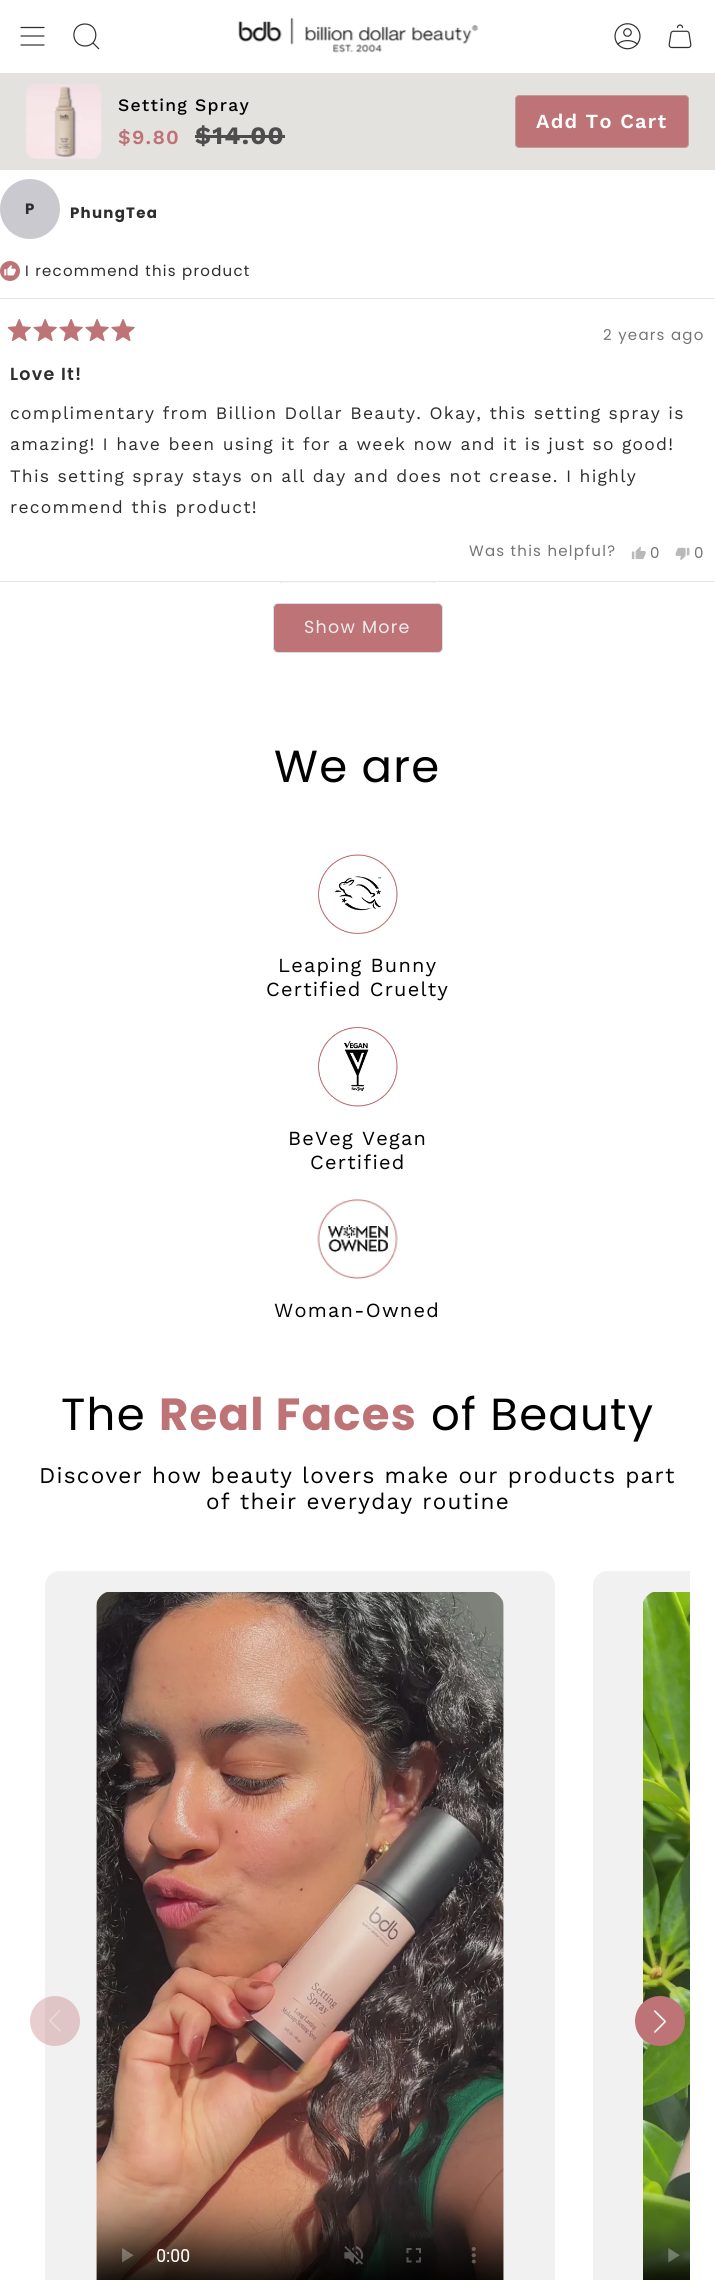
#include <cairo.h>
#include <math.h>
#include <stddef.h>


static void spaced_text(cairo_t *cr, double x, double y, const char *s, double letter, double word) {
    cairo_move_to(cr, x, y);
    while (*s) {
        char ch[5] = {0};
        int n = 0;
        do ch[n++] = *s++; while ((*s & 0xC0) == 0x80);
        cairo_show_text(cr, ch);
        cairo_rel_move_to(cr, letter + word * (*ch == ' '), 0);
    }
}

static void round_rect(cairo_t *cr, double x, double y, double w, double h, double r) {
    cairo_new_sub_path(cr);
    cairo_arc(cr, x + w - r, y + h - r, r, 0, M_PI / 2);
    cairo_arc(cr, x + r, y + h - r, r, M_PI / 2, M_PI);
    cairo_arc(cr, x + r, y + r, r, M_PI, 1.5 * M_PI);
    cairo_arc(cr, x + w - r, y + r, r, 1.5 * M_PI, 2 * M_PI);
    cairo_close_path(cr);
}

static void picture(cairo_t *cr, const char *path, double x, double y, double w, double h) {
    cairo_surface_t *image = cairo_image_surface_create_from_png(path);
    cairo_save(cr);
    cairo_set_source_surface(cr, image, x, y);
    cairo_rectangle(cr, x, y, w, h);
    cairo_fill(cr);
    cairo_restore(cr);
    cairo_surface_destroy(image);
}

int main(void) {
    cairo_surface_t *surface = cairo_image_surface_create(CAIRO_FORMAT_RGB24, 715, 2280);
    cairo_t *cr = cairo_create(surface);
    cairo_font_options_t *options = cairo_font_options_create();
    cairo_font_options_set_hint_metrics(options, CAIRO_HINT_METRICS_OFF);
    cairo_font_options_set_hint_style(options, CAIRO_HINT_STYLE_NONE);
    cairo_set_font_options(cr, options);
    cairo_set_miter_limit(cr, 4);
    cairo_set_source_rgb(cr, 1, 1, 1);
    cairo_paint(cr);
    cairo_new_path(cr);
    cairo_move_to(cr, 21, 27.5);
    cairo_line_to(cr, 44, 27.5);
    cairo_move_to(cr, 21, 36);
    cairo_line_to(cr, 44, 36);
    cairo_move_to(cr, 21, 45);
    cairo_line_to(cr, 44, 45);
    cairo_set_source_rgb(cr, 0.18, 0.18, 0.18);
    cairo_set_line_width(cr, 1.2);
    cairo_set_line_cap(cr, CAIRO_LINE_CAP_ROUND);
    cairo_set_line_join(cr, CAIRO_LINE_JOIN_ROUND);
    cairo_stroke(cr);
    cairo_new_path(cr);
    cairo_move_to(cr, 85, 24);
    cairo_curve_to(cr, 99.5, 24, 99.5, 46.5, 84.5, 46);
    cairo_curve_to(cr, 70, 45, 70.5, 24, 85, 24);
    cairo_close_path(cr);
    cairo_move_to(cr, 92.5, 42.5);
    cairo_line_to(cr, 99, 49);
    cairo_set_line_cap(cr, CAIRO_LINE_CAP_BUTT);
    cairo_set_line_join(cr, CAIRO_LINE_JOIN_MITER);
    cairo_stroke(cr);
    picture(cr, "img1.png", 238, 18, 241, 35);
    picture(cr, "img2.png", 614, 23, 27, 27);
    picture(cr, "img3.png", 668, 24, 24, 25);
    cairo_set_source_rgb(cr, 0.894, 0.886, 0.875);
    cairo_rectangle(cr, 0, 73, 715, 97);
    cairo_fill(cr);
    picture(cr, "img4.png", 26, 84, 76, 75);
    cairo_select_font_face(cr, "Work Sans Medium", CAIRO_FONT_SLANT_NORMAL, CAIRO_FONT_WEIGHT_NORMAL);
    cairo_set_font_size(cr, 17.5);
    cairo_set_source_rgb(cr, 0, 0, 0);
    spaced_text(cr, 118, 111, "Setting Spray", 1.25, 0);
    cairo_select_font_face(cr, "Work Sans SemiBold", CAIRO_FONT_SLANT_NORMAL, CAIRO_FONT_WEIGHT_NORMAL);
    cairo_set_font_size(cr, 20);
    cairo_set_source_rgb(cr, 0.745, 0.451, 0.463);
    spaced_text(cr, 118, 144, "$9.80", 1.25, 0);
    cairo_select_font_face(cr, "Work Sans", CAIRO_FONT_SLANT_NORMAL, CAIRO_FONT_WEIGHT_BOLD);
    cairo_set_font_size(cr, 25);
    cairo_set_source_rgb(cr, 0.302, 0.302, 0.302);
    spaced_text(cr, 195, 144, "$14.00", 1.25, 0);
    cairo_rectangle(cr, 195, 135, 90, 3);
    cairo_fill(cr);
    cairo_set_source_rgb(cr, 0.745, 0.451, 0.463);
    round_rect(cr, 515.5, 95.5, 173, 52, 3.5);
    cairo_fill_preserve(cr);
    cairo_set_source_rgb(cr, 0.737, 0.631, 0.576);
    cairo_set_line_width(cr, 1);
    cairo_stroke(cr);
    cairo_select_font_face(cr, "Work Sans SemiBold", CAIRO_FONT_SLANT_NORMAL, CAIRO_FONT_WEIGHT_NORMAL);
    cairo_set_font_size(cr, 20);
    cairo_set_source_rgb(cr, 1, 1, 1);
    spaced_text(cr, 536, 128, "Add To Cart", 1.25, 0);
    cairo_set_source_rgb(cr, 0.898, 0.898, 0.922);
    cairo_rectangle(cr, 0, 581, 715, 1);
    cairo_fill(cr);
    cairo_rectangle(cr, 0, 298, 715, 1);
    cairo_fill(cr);
    cairo_set_source_rgb(cr, 0.788, 0.788, 0.812);
    cairo_arc(cr, 30, 209, 30, 0, 2 * M_PI);
    cairo_fill(cr);
    cairo_select_font_face(cr, "Poppins", CAIRO_FONT_SLANT_NORMAL, CAIRO_FONT_WEIGHT_BOLD);
    cairo_set_font_size(cr, 15);
    cairo_set_source_rgb(cr, 0.176, 0.176, 0.176);
    spaced_text(cr, 25, 214, "P", 1.25, 0);
    spaced_text(cr, 70, 218, "PhungTea", 1.25, 0);
    cairo_set_source_rgb(cr, 0.745, 0.451, 0.463);
    cairo_new_path(cr);
    cairo_arc(cr, 10, 271, 10, 0, 2 * M_PI);
    cairo_fill(cr);
    picture(cr, "img5.png", 4, 265, 12, 11);
    cairo_select_font_face(cr, "Poppins", CAIRO_FONT_SLANT_NORMAL, CAIRO_FONT_WEIGHT_NORMAL);
    cairo_set_source_rgb(cr, 0.176, 0.176, 0.176);
    spaced_text(cr, 25, 276, "I recommend this product", 1.25, 0);
    picture(cr, "img6.png", 7, 319, 128, 22);
    picture(cr, "img7.png", 8, 319, 127, 22);
    cairo_set_source_rgb(cr, 0.455, 0.455, 0.455);
    spaced_text(cr, 603, 340, "2 years ago", 1.25, 0);
    cairo_select_font_face(cr, "Poppins SemiBold", CAIRO_FONT_SLANT_NORMAL, CAIRO_FONT_WEIGHT_NORMAL);
    cairo_set_font_size(cr, 17.5);
    cairo_set_source_rgb(cr, 0.176, 0.176, 0.176);
    spaced_text(cr, 10, 380, "Love It!", 1.25, 0);
    cairo_select_font_face(cr, "Work Sans", CAIRO_FONT_SLANT_NORMAL, CAIRO_FONT_WEIGHT_NORMAL);
    spaced_text(cr, 10, 419, "complimentary from Billion Dollar Beauty. Okay, this setting spray is", 1.25, 0);
    spaced_text(cr, 10, 450, "amazing! I have been using it for a week now and it is just so good!", 1.25, 0);
    spaced_text(cr, 10, 482, "This setting spray stays on all day and does not crease. I highly", 1.25, 0);
    spaced_text(cr, 10, 513, "recommend this product!", 1.25, 0);
    cairo_select_font_face(cr, "Poppins", CAIRO_FONT_SLANT_NORMAL, CAIRO_FONT_WEIGHT_NORMAL);
    cairo_set_font_size(cr, 15);
    cairo_set_source_rgb(cr, 0.455, 0.455, 0.455);
    spaced_text(cr, 469, 556, "Was this helpful?", 1.25, 0);
    picture(cr, "img8.png", 631, 546, 15, 14);
    spaced_text(cr, 650, 558, "0", 1.25, 0);
    picture(cr, "img9.png", 675, 547, 15, 14);
    spaced_text(cr, 694, 558, "0", 1.25, 0);
    cairo_set_source_rgb(cr, 0.969, 0.969, 0.969);
    cairo_rectangle(cr, 280, 582, 155, 1);
    cairo_fill(cr);
    cairo_set_source_rgb(cr, 0.745, 0.451, 0.463);
    round_rect(cr, 273.5, 603.5, 169, 49, 4.5);
    cairo_fill_preserve(cr);
    cairo_set_source_rgb(cr, 0.859, 0.867, 0.894);
    cairo_stroke(cr);
    cairo_set_font_size(cr, 17.5);
    cairo_set_source_rgb(cr, 0.929, 0.929, 0.929);
    spaced_text(cr, 304, 633, "Show More", 1.25, 0);
    cairo_save(cr);
    cairo_rectangle(cr, 0, 531, 715, 52);
    cairo_clip(cr);
    cairo_rectangle(cr, 280.5, 581.5, 154, 51);
    cairo_set_source_rgb(cr, 0.898, 0.898, 0.922);
    cairo_stroke(cr);
    cairo_restore(cr);
    cairo_set_font_size(cr, 45);
    cairo_set_source_rgb(cr, 0, 0, 0);
    spaced_text(cr, 274, 782, "We are", 1.25, 0);
    picture(cr, "img10.png", 318, 854, 80, 80);
    cairo_select_font_face(cr, "Work Sans", CAIRO_FONT_SLANT_NORMAL, CAIRO_FONT_WEIGHT_NORMAL);
    cairo_set_font_size(cr, 20);
    spaced_text(cr, 278, 972, "Leaping Bunny", 1.25, 0);
    spaced_text(cr, 266, 996, "Certified Cruelty", 1.25, 0);
    picture(cr, "img11.png", 318, 1026, 80, 81);
    spaced_text(cr, 288, 1145, "BeVeg Vegan", 1.25, 0);
    spaced_text(cr, 310, 1169, "Certified", 1.25, 0);
    picture(cr, "img12.png", 317, 1199, 81, 80);
    spaced_text(cr, 274, 1317, "Woman-Owned", 1.25, 0);
    cairo_select_font_face(cr, "Poppins", CAIRO_FONT_SLANT_NORMAL, CAIRO_FONT_WEIGHT_NORMAL);
    cairo_set_font_size(cr, 45);
    spaced_text(cr, 61, 1430, "The", 1.25, 0);
    cairo_select_font_face(cr, "Poppins", CAIRO_FONT_SLANT_NORMAL, CAIRO_FONT_WEIGHT_BOLD);
    cairo_set_source_rgb(cr, 0.745, 0.451, 0.463);
    spaced_text(cr, 159, 1430, "Real Faces", 1.25, 0);
    cairo_select_font_face(cr, "Poppins", CAIRO_FONT_SLANT_NORMAL, CAIRO_FONT_WEIGHT_NORMAL);
    cairo_set_source_rgb(cr, 0, 0, 0);
    spaced_text(cr, 431, 1430, "of Beauty", 1.25, 0);
    cairo_select_font_face(cr, "Work Sans", CAIRO_FONT_SLANT_NORMAL, CAIRO_FONT_WEIGHT_NORMAL);
    cairo_set_font_size(cr, 22.5);
    spaced_text(cr, 39, 1483, "Discover how beauty lovers make our products part", 1.25, 0);
    spaced_text(cr, 206, 1509, "of their everyday routine", 1.25, 0);
    cairo_set_source_rgb(cr, 0.945, 0.945, 0.945);
    round_rect(cr, 45, 1571, 510, 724, 15);
    cairo_fill(cr);
    picture(cr, "img13.png", 96, 1592, 408, 688);
    cairo_new_path(cr);
    cairo_move_to(cr, 608, 1571);
    cairo_line_to(cr, 690, 1571);
    cairo_line_to(cr, 690, 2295);
    cairo_line_to(cr, 608, 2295);
    cairo_curve_to(cr, 599.5, 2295, 593, 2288.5, 593, 2280);
    cairo_line_to(cr, 593, 1586);
    cairo_curve_to(cr, 593, 1577.5, 599.5, 1571, 608, 1571);
    cairo_close_path(cr);
    cairo_fill(cr);
    picture(cr, "img14.png", 643, 1592, 47, 688);
    cairo_set_source_rgba(cr, 0.745, 0.451, 0.463, 0.35);
    cairo_arc(cr, 55, 2021, 25, 0, 2 * M_PI);
    cairo_fill(cr);
    picture(cr, "img15.png", 49, 2010, 12, 22);
    cairo_set_source_rgb(cr, 0.745, 0.451, 0.463);
    cairo_arc(cr, 660, 2021, 25, 0, 2 * M_PI);
    cairo_fill(cr);
    picture(cr, "img16.png", 654, 2010, 12, 23);
    cairo_surface_write_to_png(surface, "page.png");
    cairo_font_options_destroy(options);
    cairo_destroy(cr);
    cairo_surface_destroy(surface);
    return 0;
}
